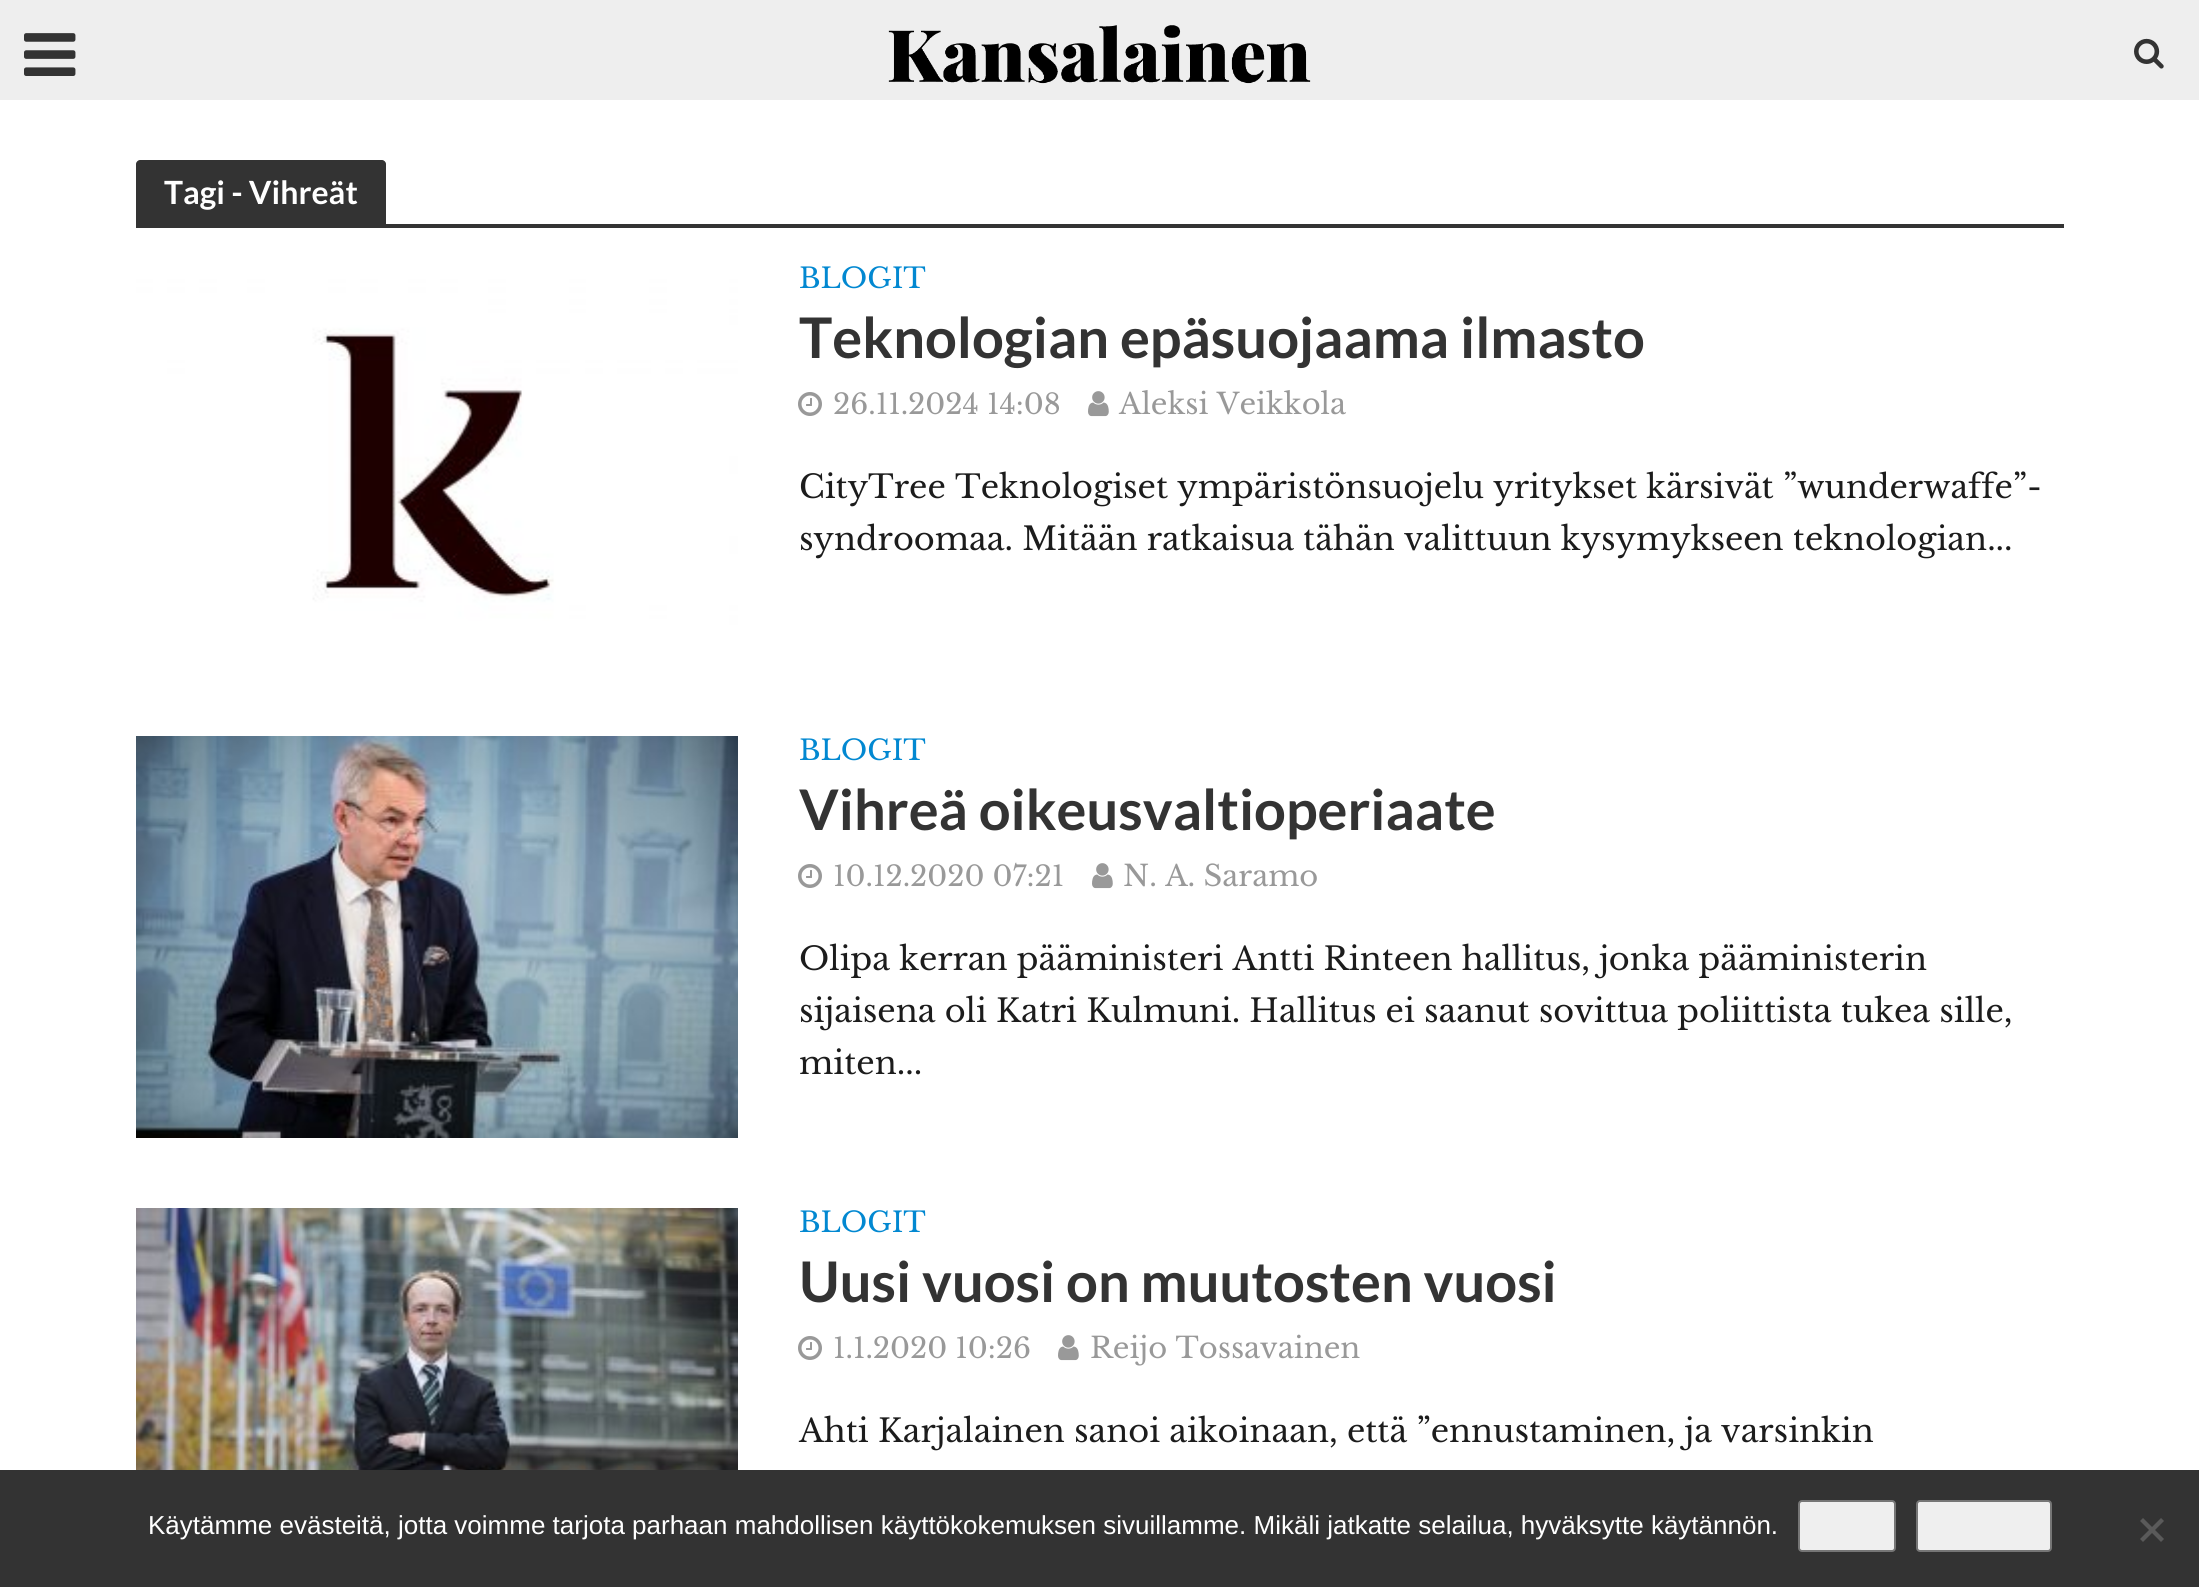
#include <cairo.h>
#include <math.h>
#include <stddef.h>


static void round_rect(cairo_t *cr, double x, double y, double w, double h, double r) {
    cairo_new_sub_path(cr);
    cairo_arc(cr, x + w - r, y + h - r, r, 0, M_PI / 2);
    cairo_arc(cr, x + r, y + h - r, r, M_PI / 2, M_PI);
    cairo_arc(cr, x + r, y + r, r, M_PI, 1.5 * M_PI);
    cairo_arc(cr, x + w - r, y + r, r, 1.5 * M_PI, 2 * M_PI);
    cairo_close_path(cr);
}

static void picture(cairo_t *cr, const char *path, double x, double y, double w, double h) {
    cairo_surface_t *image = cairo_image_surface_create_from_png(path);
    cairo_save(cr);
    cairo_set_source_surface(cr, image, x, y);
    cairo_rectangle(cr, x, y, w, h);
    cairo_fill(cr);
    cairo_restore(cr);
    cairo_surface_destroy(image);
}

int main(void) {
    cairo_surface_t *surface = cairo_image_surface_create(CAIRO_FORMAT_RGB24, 2199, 1587);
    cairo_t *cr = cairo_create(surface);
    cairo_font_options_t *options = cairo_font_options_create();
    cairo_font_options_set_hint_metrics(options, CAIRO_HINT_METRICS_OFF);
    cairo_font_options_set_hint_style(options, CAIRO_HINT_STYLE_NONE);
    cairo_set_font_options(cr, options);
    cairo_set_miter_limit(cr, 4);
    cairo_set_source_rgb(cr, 1, 1, 1);
    cairo_paint(cr);
    cairo_set_source_rgb(cr, 0.933, 0.933, 0.933);
    cairo_rectangle(cr, 0, 0, 2199, 100);
    cairo_fill(cr);
    picture(cr, "img1.png", 24, 33, 52, 43);
    picture(cr, "img2.png", 888, 25, 423, 59);
    picture(cr, "img3.png", 2134, 38, 30, 31);
    cairo_set_source_rgb(cr, 0.2, 0.2, 0.2);
    cairo_new_path(cr);
    cairo_move_to(cr, 140, 160);
    cairo_line_to(cr, 382, 160);
    cairo_curve_to(cr, 384, 160, 386, 162, 386, 164);
    cairo_line_to(cr, 386, 224);
    cairo_line_to(cr, 136, 224);
    cairo_line_to(cr, 136, 164);
    cairo_curve_to(cr, 136, 162, 138, 160, 140, 160);
    cairo_close_path(cr);
    cairo_fill(cr);
    cairo_select_font_face(cr, "Lato", CAIRO_FONT_SLANT_NORMAL, CAIRO_FONT_WEIGHT_BOLD);
    cairo_set_font_size(cr, 32);
    cairo_set_source_rgb(cr, 1, 1, 1);
    cairo_move_to(cr, 164, 204);
    cairo_show_text(cr, "Tagi - Vihreät");
    cairo_set_source_rgb(cr, 0.2, 0.2, 0.2);
    cairo_rectangle(cr, 136, 224, 1928, 4);
    cairo_fill(cr);
    picture(cr, "img4.png", 136, 264, 602, 402);
    cairo_select_font_face(cr, "Libre Baskerville", CAIRO_FONT_SLANT_NORMAL, CAIRO_FONT_WEIGHT_NORMAL);
    cairo_set_font_size(cr, 28);
    cairo_set_source_rgb(cr, 0.008, 0.533, 0.82);
    cairo_move_to(cr, 799, 288);
    cairo_show_text(cr, "BLOGIT");
    cairo_select_font_face(cr, "Lato", CAIRO_FONT_SLANT_NORMAL, CAIRO_FONT_WEIGHT_BOLD);
    cairo_set_font_size(cr, 56);
    cairo_set_source_rgb(cr, 0.2, 0.2, 0.2);
    cairo_move_to(cr, 799, 358);
    cairo_show_text(cr, "Teknologian epäsuojaama ilmasto");
    picture(cr, "img5.png", 798, 392, 24, 24);
    cairo_select_font_face(cr, "Libre Baskerville", CAIRO_FONT_SLANT_NORMAL, CAIRO_FONT_WEIGHT_NORMAL);
    cairo_set_font_size(cr, 28);
    cairo_set_source_rgb(cr, 0.6, 0.6, 0.6);
    cairo_move_to(cr, 833, 414);
    cairo_show_text(cr, "26.11.2024 14:08");
    picture(cr, "img6.png", 1088, 391, 21, 26);
    cairo_set_font_size(cr, 29);
    cairo_move_to(cr, 1119, 414);
    cairo_show_text(cr, "Aleksi Veikkola");
    cairo_set_font_size(cr, 32);
    cairo_set_source_rgb(cr, 0.11, 0.11, 0.11);
    cairo_move_to(cr, 799, 498);
    cairo_show_text(cr, "CityTree Teknologiset ympäristönsuojelu yritykset kärsivät ”wunderwaffe”-");
    cairo_move_to(cr, 799, 550);
    cairo_show_text(cr, "syndroomaa. Mitään ratkaisua tähän valittuun kysymykseen teknologian...");
    picture(cr, "img7.png", 136, 736, 602, 402);
    cairo_set_font_size(cr, 28);
    cairo_set_source_rgb(cr, 0.008, 0.533, 0.82);
    cairo_move_to(cr, 799, 760);
    cairo_show_text(cr, "BLOGIT");
    cairo_select_font_face(cr, "Lato", CAIRO_FONT_SLANT_NORMAL, CAIRO_FONT_WEIGHT_BOLD);
    cairo_set_font_size(cr, 56);
    cairo_set_source_rgb(cr, 0.2, 0.2, 0.2);
    cairo_move_to(cr, 799, 830);
    cairo_show_text(cr, "Vihreä oikeusvaltioperiaate");
    picture(cr, "img5.png", 798, 864, 24, 24);
    cairo_select_font_face(cr, "Libre Baskerville", CAIRO_FONT_SLANT_NORMAL, CAIRO_FONT_WEIGHT_NORMAL);
    cairo_set_font_size(cr, 28);
    cairo_set_source_rgb(cr, 0.6, 0.6, 0.6);
    cairo_move_to(cr, 833, 886);
    cairo_show_text(cr, "10.12.2020 07:21");
    picture(cr, "img6.png", 1092, 863, 21, 26);
    cairo_set_font_size(cr, 29);
    cairo_move_to(cr, 1123, 886);
    cairo_show_text(cr, "N. A. Saramo");
    cairo_set_font_size(cr, 32);
    cairo_set_source_rgb(cr, 0.11, 0.11, 0.11);
    cairo_move_to(cr, 799, 970);
    cairo_show_text(cr, "Olipa kerran pääministeri Antti Rinteen hallitus, jonka pääministerin");
    cairo_move_to(cr, 799, 1022);
    cairo_show_text(cr, "sijaisena oli Katri Kulmuni. Hallitus ei saanut sovittua poliittista tukea sille,");
    cairo_move_to(cr, 799, 1074);
    cairo_show_text(cr, "miten...");
    picture(cr, "img8.png", 136, 1208, 602, 262);
    cairo_set_font_size(cr, 28);
    cairo_set_source_rgb(cr, 0.008, 0.533, 0.82);
    cairo_move_to(cr, 799, 1232);
    cairo_show_text(cr, "BLOGIT");
    cairo_select_font_face(cr, "Lato", CAIRO_FONT_SLANT_NORMAL, CAIRO_FONT_WEIGHT_BOLD);
    cairo_set_font_size(cr, 56);
    cairo_set_source_rgb(cr, 0.2, 0.2, 0.2);
    cairo_move_to(cr, 799, 1302);
    cairo_show_text(cr, "Uusi vuosi on muutosten vuosi");
    picture(cr, "img5.png", 798, 1336, 24, 24);
    cairo_select_font_face(cr, "Libre Baskerville", CAIRO_FONT_SLANT_NORMAL, CAIRO_FONT_WEIGHT_NORMAL);
    cairo_set_font_size(cr, 28);
    cairo_set_source_rgb(cr, 0.6, 0.6, 0.6);
    cairo_move_to(cr, 833, 1358);
    cairo_show_text(cr, "1.1.2020 10:26");
    picture(cr, "img6.png", 1058, 1335, 21, 26);
    cairo_set_font_size(cr, 29);
    cairo_move_to(cr, 1090, 1358);
    cairo_show_text(cr, "Reijo Tossavainen");
    cairo_set_font_size(cr, 32);
    cairo_set_source_rgb(cr, 0.11, 0.11, 0.11);
    cairo_move_to(cr, 799, 1442);
    cairo_show_text(cr, "Ahti Karjalainen sanoi aikoinaan, että ”ennustaminen, ja varsinkin");
    cairo_set_source_rgb(cr, 0.2, 0.2, 0.2);
    cairo_rectangle(cr, 0, 1470, 2199, 117);
    cairo_fill(cr);
    cairo_select_font_face(cr, "Liberation Sans", CAIRO_FONT_SLANT_NORMAL, CAIRO_FONT_WEIGHT_NORMAL);
    cairo_set_font_size(cr, 26);
    cairo_set_source_rgb(cr, 1, 1, 1);
    cairo_move_to(cr, 148, 1534);
    cairo_show_text(cr, "Käytämme evästeitä, jotta voimme tarjota parhaan mahdollisen käyttökokemuksen sivuillamme. Mikäli jatkatte selailua, hyväksytte käytännön.");
    cairo_set_source_rgb(cr, 0.937, 0.937, 0.937);
    round_rect(cr, 1799, 1501, 96, 50, 3);
    cairo_fill_preserve(cr);
    cairo_set_source_rgb(cr, 0.463, 0.463, 0.463);
    cairo_stroke(cr);
    cairo_set_source_rgb(cr, 0.937, 0.937, 0.937);
    round_rect(cr, 1917, 1501, 134, 50, 3);
    cairo_fill_preserve(cr);
    cairo_set_source_rgb(cr, 0.463, 0.463, 0.463);
    cairo_stroke(cr);
    cairo_set_source_rgb(cr, 0.353, 0.353, 0.353);
    cairo_new_path(cr);
    cairo_move_to(cr, 2161, 1518);
    cairo_line_to(cr, 2164, 1521);
    cairo_line_to(cr, 2143, 1542);
    cairo_line_to(cr, 2140, 1539);
    cairo_close_path(cr);
    cairo_fill(cr);
    cairo_new_path(cr);
    cairo_move_to(cr, 2140, 1521);
    cairo_line_to(cr, 2143, 1518);
    cairo_line_to(cr, 2164, 1539);
    cairo_line_to(cr, 2161, 1542);
    cairo_close_path(cr);
    cairo_fill(cr);
    cairo_surface_write_to_png(surface, "page.png");
    cairo_font_options_destroy(options);
    cairo_destroy(cr);
    cairo_surface_destroy(surface);
    return 0;
}
